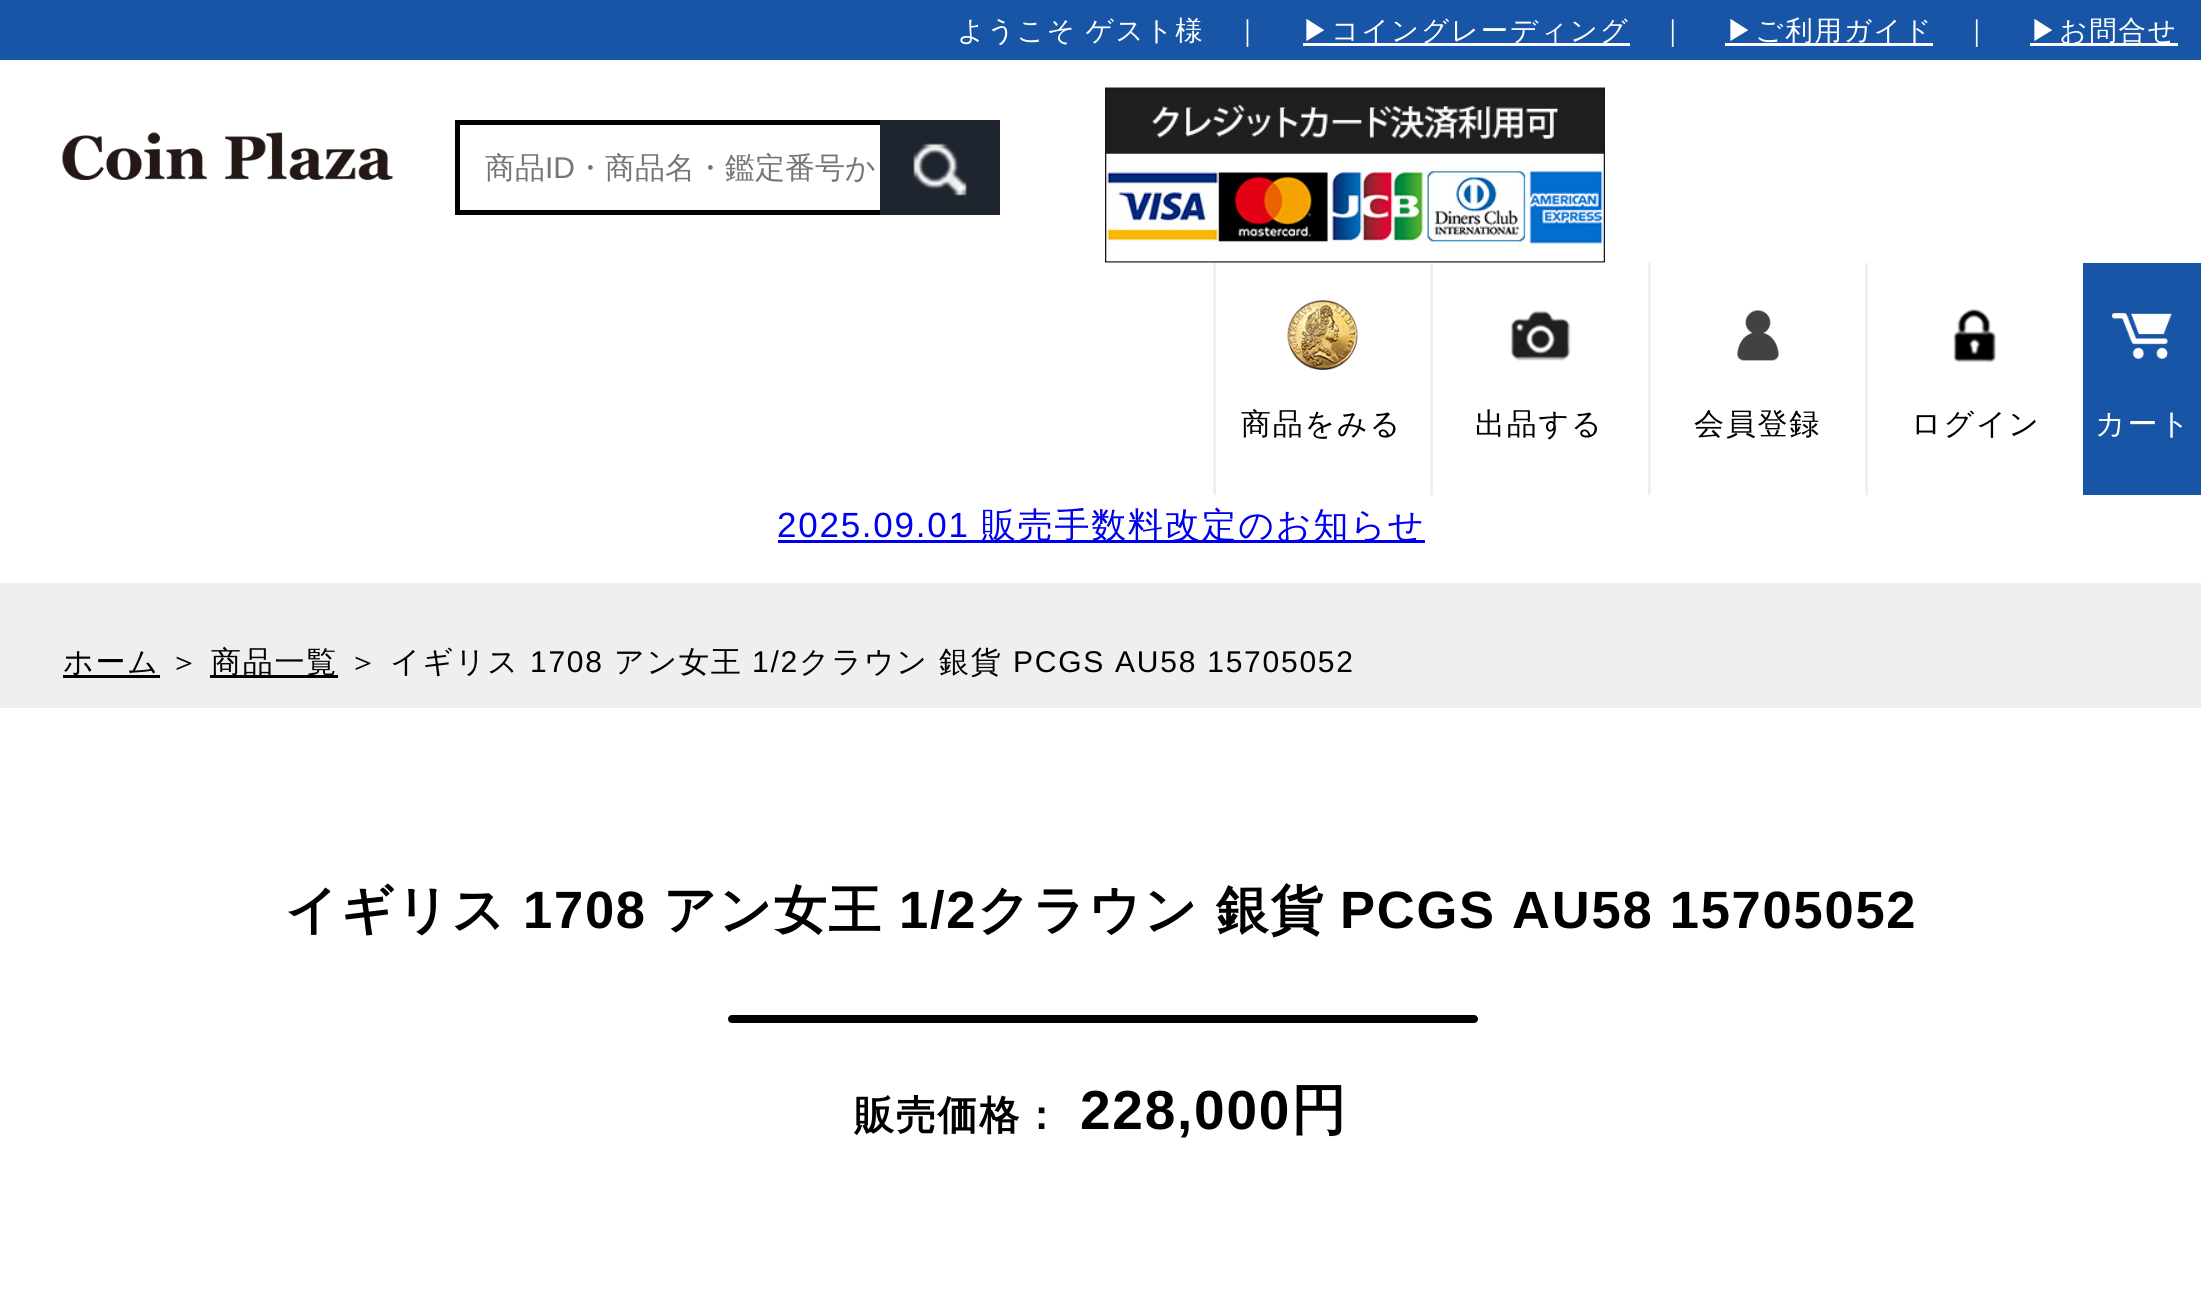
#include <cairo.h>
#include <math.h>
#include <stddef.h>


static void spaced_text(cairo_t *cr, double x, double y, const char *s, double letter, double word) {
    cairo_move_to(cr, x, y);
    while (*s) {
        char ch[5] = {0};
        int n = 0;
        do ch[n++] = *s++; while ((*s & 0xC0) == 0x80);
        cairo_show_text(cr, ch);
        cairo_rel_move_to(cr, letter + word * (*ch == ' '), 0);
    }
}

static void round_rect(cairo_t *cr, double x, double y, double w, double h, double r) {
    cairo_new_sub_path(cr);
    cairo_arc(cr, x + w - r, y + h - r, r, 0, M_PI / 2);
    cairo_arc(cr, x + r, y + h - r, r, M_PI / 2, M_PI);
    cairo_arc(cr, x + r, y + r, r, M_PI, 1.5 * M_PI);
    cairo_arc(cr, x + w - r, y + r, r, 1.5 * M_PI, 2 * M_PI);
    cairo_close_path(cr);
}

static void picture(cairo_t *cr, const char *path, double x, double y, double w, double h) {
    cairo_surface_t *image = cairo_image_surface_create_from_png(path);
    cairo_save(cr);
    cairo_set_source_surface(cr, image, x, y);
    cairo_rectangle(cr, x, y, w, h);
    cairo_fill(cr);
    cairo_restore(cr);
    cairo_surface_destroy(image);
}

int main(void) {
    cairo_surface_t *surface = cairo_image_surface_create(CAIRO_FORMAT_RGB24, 2201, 1294);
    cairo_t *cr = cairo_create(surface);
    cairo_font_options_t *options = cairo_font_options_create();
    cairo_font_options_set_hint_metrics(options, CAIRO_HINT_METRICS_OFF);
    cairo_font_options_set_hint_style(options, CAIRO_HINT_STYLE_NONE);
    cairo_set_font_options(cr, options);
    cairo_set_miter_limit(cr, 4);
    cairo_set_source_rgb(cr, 1, 1, 1);
    cairo_paint(cr);
    cairo_set_source_rgb(cr, 0.094, 0.333, 0.651);
    cairo_rectangle(cr, 0, 0, 2201, 60);
    cairo_fill(cr);
    cairo_select_font_face(cr, "WenQuanYi Zen Hei Medium", CAIRO_FONT_SLANT_NORMAL, CAIRO_FONT_WEIGHT_NORMAL);
    cairo_set_font_size(cr, 27.5);
    cairo_set_source_rgb(cr, 1, 1, 1);
    spaced_text(cr, 957, 40, "ようこそ ゲスト様　｜", 1.75, -1);
    cairo_rectangle(cr, 1303, 43, 327, 3);
    cairo_fill(cr);
    spaced_text(cr, 1302, 40, "▶コイングレーディング", 1.75, 0);
    spaced_text(cr, 1659, 40, "｜", 1.75, 0);
    cairo_rectangle(cr, 1725, 43, 208, 3);
    cairo_fill(cr);
    spaced_text(cr, 1726, 40, "▶ご利用ガイド", 1.75, 0);
    spaced_text(cr, 1963, 40, "｜", 1.75, 0);
    cairo_rectangle(cr, 2030, 43, 148, 3);
    cairo_fill(cr);
    spaced_text(cr, 2030, 40, "▶お問合せ", 1.75, 0);
    picture(cr, "img1.png", 62, 132, 331, 48);
    cairo_rectangle(cr, 457.5, 122.5, 445, 90);
    cairo_set_source_rgb(cr, 0, 0, 0);
    cairo_set_line_width(cr, 5);
    cairo_stroke(cr);
    cairo_set_font_size(cr, 30);
    cairo_set_source_rgb(cr, 0.459, 0.459, 0.459);
    cairo_move_to(cr, 485, 178);
    cairo_show_text(cr, "商品");
    cairo_select_font_face(cr, "Liberation Sans", CAIRO_FONT_SLANT_NORMAL, CAIRO_FONT_WEIGHT_NORMAL);
    cairo_move_to(cr, 545, 178);
    cairo_show_text(cr, "ID");
    cairo_select_font_face(cr, "WenQuanYi Zen Hei Medium", CAIRO_FONT_SLANT_NORMAL, CAIRO_FONT_WEIGHT_NORMAL);
    cairo_move_to(cr, 575, 178);
    cairo_show_text(cr, "・商品名・鑑定番号か");
    picture(cr, "img2.png", 880, 120, 120, 95);
    picture(cr, "img3.png", 1105, 87, 500, 176);
    cairo_set_source_rgb(cr, 0.941, 0.941, 0.941);
    cairo_rectangle(cr, 1213, 263, 3, 232);
    cairo_fill(cr);
    picture(cr, "img4.png", 1287, 300, 71, 70);
    cairo_set_source_rgb(cr, 0, 0, 0);
    spaced_text(cr, 1241, 434, "商品をみる", 1.75, 0);
    cairo_set_source_rgb(cr, 0.941, 0.941, 0.941);
    cairo_rectangle(cr, 1430, 263, 3, 232);
    cairo_fill(cr);
    picture(cr, "img5.png", 1510, 310, 61, 51);
    cairo_set_source_rgb(cr, 0, 0, 0);
    spaced_text(cr, 1475, 434, "出品する", 1.75, 0);
    cairo_set_source_rgb(cr, 0.941, 0.941, 0.941);
    cairo_rectangle(cr, 1648, 263, 3, 232);
    cairo_fill(cr);
    picture(cr, "img6.png", 1737, 310, 42, 51);
    cairo_set_source_rgb(cr, 0, 0, 0);
    spaced_text(cr, 1694, 434, "会員登録", 1.75, 0);
    cairo_set_source_rgb(cr, 0.941, 0.941, 0.941);
    cairo_rectangle(cr, 1865, 263, 3, 232);
    cairo_fill(cr);
    picture(cr, "img7.png", 1953, 308, 43, 55);
    cairo_set_source_rgb(cr, 0, 0, 0);
    spaced_text(cr, 1911, 434, "ログイン", 1.75, 0);
    cairo_set_source_rgb(cr, 0.094, 0.333, 0.651);
    cairo_rectangle(cr, 2083, 263, 118, 232);
    cairo_fill(cr);
    picture(cr, "img8.png", 2111, 313, 61, 46);
    cairo_set_source_rgb(cr, 1, 1, 1);
    spaced_text(cr, 2095, 434, "カート", 1.75, 0);
    cairo_select_font_face(cr, "Liberation Sans", CAIRO_FONT_SLANT_NORMAL, CAIRO_FONT_WEIGHT_NORMAL);
    cairo_set_font_size(cr, 35);
    cairo_set_source_rgb(cr, 0, 0, 0.933);
    spaced_text(cr, 777, 537, "2025.09.01", 1.75, 0);
    cairo_rectangle(cr, 778, 540, 647, 3);
    cairo_fill(cr);
    cairo_select_font_face(cr, "WenQuanYi Zen Hei Medium", CAIRO_FONT_SLANT_NORMAL, CAIRO_FONT_WEIGHT_NORMAL);
    spaced_text(cr, 981, 537, "販売手数料改定のお知らせ", 1.75, 0);
    cairo_set_source_rgb(cr, 0.937, 0.937, 0.937);
    cairo_rectangle(cr, 0, 583, 2201, 125);
    cairo_fill(cr);
    cairo_set_source_rgb(cr, 0, 0, 0);
    cairo_rectangle(cr, 63, 675, 97, 3);
    cairo_fill(cr);
    cairo_set_font_size(cr, 30);
    spaced_text(cr, 63, 672, "ホーム", 1.75, 0);
    spaced_text(cr, 169, 672, "＞", 1.75, 0);
    cairo_rectangle(cr, 210, 675, 128, 3);
    cairo_fill(cr);
    spaced_text(cr, 211, 672, "商品一覧", 1.75, 0);
    spaced_text(cr, 348, 672, "＞", 1.75, 0);
    spaced_text(cr, 390, 672, "イギリス", 1.75, 0);
    cairo_select_font_face(cr, "Liberation Sans", CAIRO_FONT_SLANT_NORMAL, CAIRO_FONT_WEIGHT_NORMAL);
    spaced_text(cr, 530, 672, "1708", 1.75, 0);
    cairo_select_font_face(cr, "WenQuanYi Zen Hei Medium", CAIRO_FONT_SLANT_NORMAL, CAIRO_FONT_WEIGHT_NORMAL);
    spaced_text(cr, 614, 672, "アン女王", 1.75, 0);
    cairo_select_font_face(cr, "Liberation Sans", CAIRO_FONT_SLANT_NORMAL, CAIRO_FONT_WEIGHT_NORMAL);
    spaced_text(cr, 752, 672, "1/2", 1.75, 0);
    cairo_select_font_face(cr, "WenQuanYi Zen Hei Medium", CAIRO_FONT_SLANT_NORMAL, CAIRO_FONT_WEIGHT_NORMAL);
    spaced_text(cr, 799, 672, "クラウン", 1.75, 0);
    spaced_text(cr, 939, 672, "銀貨", 1.75, 0);
    cairo_select_font_face(cr, "Liberation Sans", CAIRO_FONT_SLANT_NORMAL, CAIRO_FONT_WEIGHT_NORMAL);
    spaced_text(cr, 1013, 672, "PCGS AU58 15705052", 1.75, 0);
    cairo_select_font_face(cr, "WenQuanYi Zen Hei", CAIRO_FONT_SLANT_NORMAL, CAIRO_FONT_WEIGHT_BOLD);
    cairo_set_font_size(cr, 52.5);
    spaced_text(cr, 285, 928, "イギリス", 1.75, 0);
    cairo_select_font_face(cr, "Liberation Sans", CAIRO_FONT_SLANT_NORMAL, CAIRO_FONT_WEIGHT_BOLD);
    spaced_text(cr, 523, 928, "1708", 1.75, 0);
    cairo_select_font_face(cr, "WenQuanYi Zen Hei", CAIRO_FONT_SLANT_NORMAL, CAIRO_FONT_WEIGHT_BOLD);
    spaced_text(cr, 663, 928, "アン女王", 1.75, 0);
    cairo_select_font_face(cr, "Liberation Sans", CAIRO_FONT_SLANT_NORMAL, CAIRO_FONT_WEIGHT_BOLD);
    spaced_text(cr, 899, 928, "1/2", 1.75, 0);
    cairo_select_font_face(cr, "WenQuanYi Zen Hei", CAIRO_FONT_SLANT_NORMAL, CAIRO_FONT_WEIGHT_BOLD);
    spaced_text(cr, 977, 928, "クラウン", 1.75, 0);
    spaced_text(cr, 1216, 928, "銀貨", 1.75, 0);
    cairo_select_font_face(cr, "Liberation Sans", CAIRO_FONT_SLANT_NORMAL, CAIRO_FONT_WEIGHT_BOLD);
    spaced_text(cr, 1340, 928, "PCGS AU58 15705052", 1.75, 0);
    round_rect(cr, 728, 1015, 750, 8, 4);
    cairo_fill(cr);
    cairo_select_font_face(cr, "WenQuanYi Zen Hei", CAIRO_FONT_SLANT_NORMAL, CAIRO_FONT_WEIGHT_BOLD);
    cairo_set_font_size(cr, 40);
    spaced_text(cr, 854, 1129, "販売価格：", 1.75, 0);
    cairo_select_font_face(cr, "Liberation Sans", CAIRO_FONT_SLANT_NORMAL, CAIRO_FONT_WEIGHT_BOLD);
    cairo_set_font_size(cr, 55);
    spaced_text(cr, 1080, 1129, "228,000", 1.75, 0);
    cairo_select_font_face(cr, "WenQuanYi Zen Hei", CAIRO_FONT_SLANT_NORMAL, CAIRO_FONT_WEIGHT_BOLD);
    spaced_text(cr, 1291, 1129, "円", 1.75, 0);
    cairo_surface_write_to_png(surface, "page.png");
    cairo_font_options_destroy(options);
    cairo_destroy(cr);
    cairo_surface_destroy(surface);
    return 0;
}
